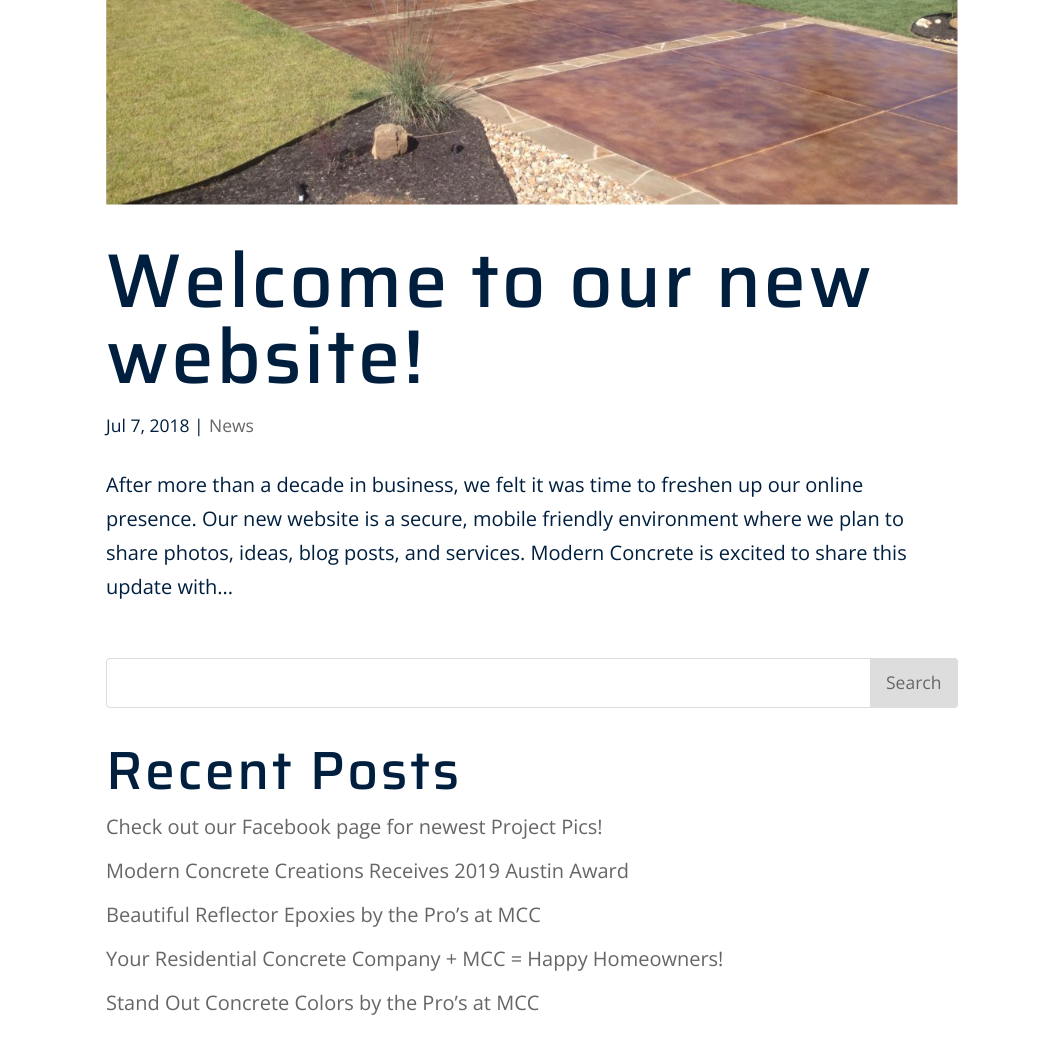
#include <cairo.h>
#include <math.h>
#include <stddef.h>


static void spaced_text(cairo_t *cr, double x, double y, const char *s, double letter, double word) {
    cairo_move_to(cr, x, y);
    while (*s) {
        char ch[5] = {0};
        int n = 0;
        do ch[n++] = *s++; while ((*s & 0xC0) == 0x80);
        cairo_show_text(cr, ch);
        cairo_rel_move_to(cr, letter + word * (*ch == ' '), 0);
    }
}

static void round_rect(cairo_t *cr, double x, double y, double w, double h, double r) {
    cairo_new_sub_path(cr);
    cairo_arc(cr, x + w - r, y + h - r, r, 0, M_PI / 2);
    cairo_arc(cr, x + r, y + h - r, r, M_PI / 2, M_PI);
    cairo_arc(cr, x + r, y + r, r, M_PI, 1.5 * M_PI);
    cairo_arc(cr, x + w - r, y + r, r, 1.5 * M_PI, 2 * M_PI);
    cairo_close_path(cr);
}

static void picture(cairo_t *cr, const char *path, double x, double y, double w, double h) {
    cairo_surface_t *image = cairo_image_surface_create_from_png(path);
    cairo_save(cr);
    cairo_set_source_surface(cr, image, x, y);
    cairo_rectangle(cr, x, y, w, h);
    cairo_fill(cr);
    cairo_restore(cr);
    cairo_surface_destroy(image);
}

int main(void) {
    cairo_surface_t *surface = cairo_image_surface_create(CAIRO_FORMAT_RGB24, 1063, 1063);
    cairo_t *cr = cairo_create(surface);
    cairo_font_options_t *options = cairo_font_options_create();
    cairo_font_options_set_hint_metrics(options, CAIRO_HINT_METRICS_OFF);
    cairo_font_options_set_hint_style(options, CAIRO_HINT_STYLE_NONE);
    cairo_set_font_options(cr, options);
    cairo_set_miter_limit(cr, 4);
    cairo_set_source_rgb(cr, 1, 1, 1);
    cairo_paint(cr);
    picture(cr, "img1.png", 106, 0, 852, 205);
    cairo_select_font_face(cr, "Saira Medium", CAIRO_FONT_SLANT_NORMAL, CAIRO_FONT_WEIGHT_NORMAL);
    cairo_set_font_size(cr, 76.25);
    cairo_set_source_rgb(cr, 0, 0.122, 0.247);
    spaced_text(cr, 106, 307, "Welcome to our new", 2.5, 0);
    spaced_text(cr, 106, 383, "website!", 2.5, 0);
    cairo_select_font_face(cr, "Open Sans", CAIRO_FONT_SLANT_NORMAL, CAIRO_FONT_WEIGHT_NORMAL);
    cairo_set_font_size(cr, 17.5);
    cairo_move_to(cr, 106, 432);
    cairo_show_text(cr, "Jul 7, 2018 |");
    cairo_set_source_rgb(cr, 0.4, 0.4, 0.4);
    cairo_move_to(cr, 209, 432);
    cairo_show_text(cr, "News");
    cairo_set_font_size(cr, 20);
    cairo_set_source_rgb(cr, 0, 0.122, 0.247);
    cairo_move_to(cr, 106, 492);
    cairo_show_text(cr, "After more than a decade in business, we felt it was time to freshen up our online");
    cairo_move_to(cr, 106, 526);
    cairo_show_text(cr, "presence. Our new website is a secure, mobile friendly environment where we plan to");
    cairo_move_to(cr, 106, 560);
    cairo_show_text(cr, "share photos, ideas, blog posts, and services. Modern Concrete is excited to share this");
    cairo_move_to(cr, 106, 594);
    cairo_show_text(cr, "update with...");
    round_rect(cr, 106.5, 658.5, 851, 49, 3.5);
    cairo_set_source_rgb(cr, 0.867, 0.867, 0.867);
    cairo_set_line_width(cr, 1);
    cairo_stroke(cr);
    cairo_new_path(cr);
    cairo_move_to(cr, 870.5, 658.5);
    cairo_line_to(cr, 954, 658.5);
    cairo_curve_to(cr, 956, 658.5, 957.5, 660, 957.5, 662);
    cairo_line_to(cr, 957.5, 704);
    cairo_curve_to(cr, 957.5, 706, 956, 707.5, 954, 707.5);
    cairo_line_to(cr, 870.5, 707.5);
    cairo_close_path(cr);
    cairo_fill_preserve(cr);
    cairo_stroke(cr);
    cairo_set_font_size(cr, 17.5);
    cairo_set_source_rgb(cr, 0.4, 0.4, 0.4);
    cairo_move_to(cr, 886, 689);
    cairo_show_text(cr, "Search");
    cairo_select_font_face(cr, "Saira Medium", CAIRO_FONT_SLANT_NORMAL, CAIRO_FONT_WEIGHT_NORMAL);
    cairo_set_font_size(cr, 53.75);
    cairo_set_source_rgb(cr, 0, 0.122, 0.247);
    spaced_text(cr, 106, 789, "Recent Posts", 2.5, 0);
    cairo_select_font_face(cr, "Open Sans", CAIRO_FONT_SLANT_NORMAL, CAIRO_FONT_WEIGHT_NORMAL);
    cairo_set_font_size(cr, 20);
    cairo_set_source_rgb(cr, 0.4, 0.4, 0.4);
    cairo_move_to(cr, 106, 834);
    cairo_show_text(cr, "Check out our Facebook page for newest Project Pics!");
    cairo_move_to(cr, 106, 878);
    cairo_show_text(cr, "Modern Concrete Creations Receives 2019 Austin Award");
    cairo_move_to(cr, 106, 922);
    cairo_show_text(cr, "Beautiful Reflector Epoxies by the Pro’s at MCC");
    cairo_move_to(cr, 106, 966);
    cairo_show_text(cr, "Your Residential Concrete Company + MCC = Happy Homeowners!");
    cairo_move_to(cr, 106, 1010);
    cairo_show_text(cr, "Stand Out Concrete Colors by the Pro’s at MCC");
    cairo_surface_write_to_png(surface, "page.png");
    cairo_font_options_destroy(options);
    cairo_destroy(cr);
    cairo_surface_destroy(surface);
    return 0;
}
